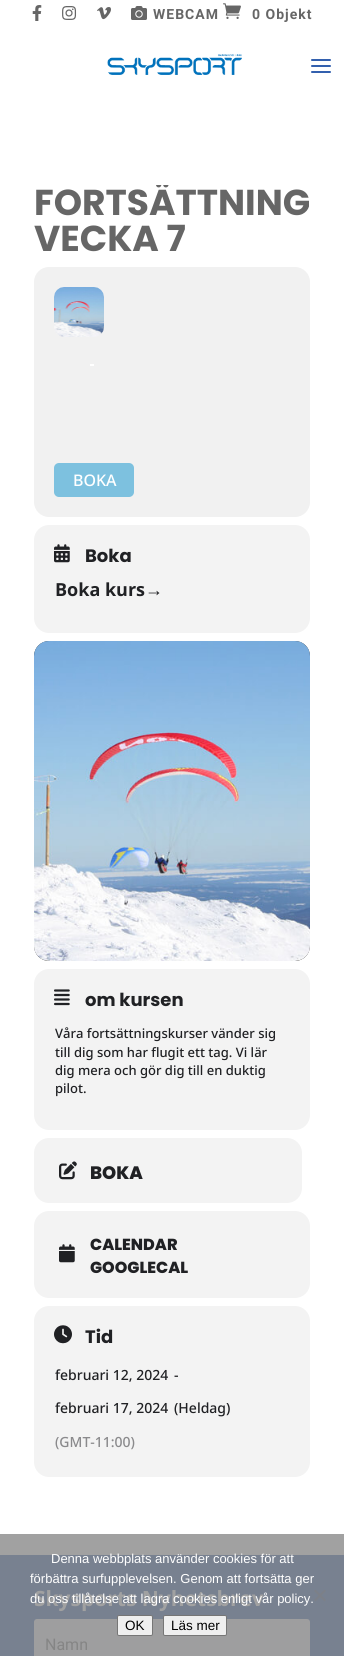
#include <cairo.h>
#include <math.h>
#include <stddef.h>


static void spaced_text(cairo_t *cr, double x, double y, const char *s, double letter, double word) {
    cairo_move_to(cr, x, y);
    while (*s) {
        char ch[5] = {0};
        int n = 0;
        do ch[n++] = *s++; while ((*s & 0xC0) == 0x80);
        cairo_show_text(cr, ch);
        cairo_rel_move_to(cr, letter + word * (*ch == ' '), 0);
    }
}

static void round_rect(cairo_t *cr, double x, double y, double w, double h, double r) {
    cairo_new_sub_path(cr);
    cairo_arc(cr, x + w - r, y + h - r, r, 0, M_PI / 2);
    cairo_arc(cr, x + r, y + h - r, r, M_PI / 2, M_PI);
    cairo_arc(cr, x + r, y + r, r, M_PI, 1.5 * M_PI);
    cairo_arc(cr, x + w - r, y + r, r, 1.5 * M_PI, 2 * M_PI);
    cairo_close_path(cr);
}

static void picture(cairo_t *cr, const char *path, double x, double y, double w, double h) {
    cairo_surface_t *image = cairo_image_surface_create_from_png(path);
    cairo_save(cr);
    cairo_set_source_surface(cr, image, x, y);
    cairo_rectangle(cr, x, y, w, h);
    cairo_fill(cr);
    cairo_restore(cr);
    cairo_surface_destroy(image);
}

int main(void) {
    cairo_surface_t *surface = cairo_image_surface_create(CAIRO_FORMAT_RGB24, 344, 1656);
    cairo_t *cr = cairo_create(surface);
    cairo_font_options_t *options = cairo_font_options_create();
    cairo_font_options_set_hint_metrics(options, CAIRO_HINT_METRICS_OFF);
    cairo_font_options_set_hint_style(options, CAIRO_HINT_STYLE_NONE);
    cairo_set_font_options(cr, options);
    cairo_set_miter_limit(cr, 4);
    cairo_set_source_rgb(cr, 1, 1, 1);
    cairo_paint(cr);
    cairo_set_source_rgb(cr, 0.631, 0.631, 0.631);
    cairo_rectangle(cr, 0, 1534, 344, 21);
    cairo_fill(cr);
    picture(cr, "img1.png", 32, 5, 10, 16);
    picture(cr, "img2.png", 62, 6, 15, 14);
    picture(cr, "img3.png", 97, 7, 14, 13);
    picture(cr, "img4.png", 131, 6, 16, 14);
    cairo_select_font_face(cr, "Roboto", CAIRO_FONT_SLANT_NORMAL, CAIRO_FONT_WEIGHT_BOLD);
    cairo_set_font_size(cr, 14);
    cairo_set_source_rgb(cr, 0.4, 0.4, 0.4);
    spaced_text(cr, 153, 19, "WEBCAM", 1, 0);
    picture(cr, "img5.png", 223, 3, 18, 16);
    spaced_text(cr, 252, 19, "0 Objekt", 1, 0);
    picture(cr, "img6.png", 107, 54, 135, 21);
    picture(cr, "img7.png", 311, 59, 20, 14);
    cairo_save(cr);
    round_rect(cr, 34, 185, 276, 1300, 5);
    cairo_clip(cr);
    cairo_select_font_face(cr, "Poppins", CAIRO_FONT_SLANT_NORMAL, CAIRO_FONT_WEIGHT_BOLD);
    cairo_set_font_size(cr, 36);
    cairo_move_to(cr, 34, 215);
    cairo_show_text(cr, "FORTSÄTTNING");
    cairo_restore(cr);
    cairo_select_font_face(cr, "Poppins", CAIRO_FONT_SLANT_NORMAL, CAIRO_FONT_WEIGHT_BOLD);
    cairo_set_font_size(cr, 36);
    cairo_move_to(cr, 34, 251);
    cairo_show_text(cr, "VECKA 7");
    cairo_set_source_rgb(cr, 0.945, 0.945, 0.945);
    round_rect(cr, 34, 267, 276, 250, 15);
    cairo_fill(cr);
    picture(cr, "img8.png", 54, 287, 50, 50);
    cairo_set_source_rgb(cr, 1, 1, 1);
    cairo_rectangle(cr, 90, 364, 4, 2);
    cairo_fill(cr);
    cairo_set_source_rgb(cr, 0.49, 0.757, 0.875);
    round_rect(cr, 54, 463, 80, 34, 5);
    cairo_fill(cr);
    cairo_select_font_face(cr, "Noto Sans Medium", CAIRO_FONT_SLANT_NORMAL, CAIRO_FONT_WEIGHT_NORMAL);
    cairo_set_font_size(cr, 16);
    cairo_set_source_rgb(cr, 1, 1, 1);
    cairo_move_to(cr, 73, 486);
    cairo_show_text(cr, "BOKA");
    cairo_set_source_rgb(cr, 0.953, 0.953, 0.953);
    round_rect(cr, 34, 525, 276, 108, 15);
    cairo_fill(cr);
    picture(cr, "img9.png", 54, 544, 16, 19);
    cairo_select_font_face(cr, "Poppins", CAIRO_FONT_SLANT_NORMAL, CAIRO_FONT_WEIGHT_BOLD);
    cairo_set_font_size(cr, 18);
    cairo_set_source_rgb(cr, 0.125, 0.129, 0.141);
    cairo_move_to(cr, 85, 562);
    cairo_show_text(cr, "Boka");
    cairo_select_font_face(cr, "Open Sans", CAIRO_FONT_SLANT_NORMAL, CAIRO_FONT_WEIGHT_BOLD);
    cairo_move_to(cr, 55, 596);
    cairo_show_text(cr, "Boka kurs");
    cairo_select_font_face(cr, "Liberation Sans", CAIRO_FONT_SLANT_NORMAL, CAIRO_FONT_WEIGHT_BOLD);
    cairo_move_to(cr, 145, 596);
    cairo_show_text(cr, "→");
    cairo_set_source_rgb(cr, 0.2, 0.2, 0.2);
    round_rect(cr, 34, 641, 276, 320, 15);
    cairo_fill(cr);
    picture(cr, "img10.png", 34, 641, 276, 320);
    cairo_set_source_rgb(cr, 0.953, 0.953, 0.953);
    round_rect(cr, 34, 969, 276, 161, 15);
    cairo_fill(cr);
    picture(cr, "img11.png", 54, 989, 16, 17);
    cairo_select_font_face(cr, "Poppins", CAIRO_FONT_SLANT_NORMAL, CAIRO_FONT_WEIGHT_BOLD);
    cairo_set_source_rgb(cr, 0.125, 0.129, 0.141);
    cairo_move_to(cr, 85, 1006);
    cairo_show_text(cr, "om kursen");
    cairo_select_font_face(cr, "Noto Sans Medium", CAIRO_FONT_SLANT_NORMAL, CAIRO_FONT_WEIGHT_NORMAL);
    cairo_set_font_size(cr, 13);
    cairo_move_to(cr, 55, 1038);
    cairo_show_text(cr, "Våra fortsättningskurser vänder sig");
    cairo_move_to(cr, 55, 1057);
    cairo_show_text(cr, "till dig som har flugit ett tag. Vi lär");
    cairo_move_to(cr, 55, 1075);
    cairo_show_text(cr, "dig mera och gör dig till en duktig");
    cairo_move_to(cr, 55, 1093);
    cairo_show_text(cr, "pilot.");
    cairo_set_source_rgb(cr, 0.953, 0.953, 0.953);
    round_rect(cr, 34, 1138, 268, 65, 15);
    cairo_fill(cr);
    picture(cr, "img12.png", 59, 1161, 18, 19);
    cairo_select_font_face(cr, "Poppins ExtraBold", CAIRO_FONT_SLANT_NORMAL, CAIRO_FONT_WEIGHT_NORMAL);
    cairo_set_font_size(cr, 18);
    cairo_set_source_rgb(cr, 0.125, 0.129, 0.141);
    cairo_move_to(cr, 90, 1179);
    cairo_show_text(cr, "BOKA");
    cairo_set_source_rgb(cr, 0.953, 0.953, 0.953);
    round_rect(cr, 34, 1211, 276, 87, 15);
    cairo_fill(cr);
    picture(cr, "img13.png", 59, 1244, 16, 19);
    cairo_set_font_size(cr, 16);
    cairo_set_source_rgb(cr, 0.125, 0.129, 0.141);
    cairo_move_to(cr, 90, 1250);
    cairo_show_text(cr, "CALENDAR");
    cairo_move_to(cr, 90, 1273);
    cairo_show_text(cr, "GOOGLECAL");
    cairo_set_source_rgb(cr, 0.953, 0.953, 0.953);
    round_rect(cr, 34, 1306, 276, 171, 15);
    cairo_fill(cr);
    picture(cr, "img14.png", 54, 1325, 18, 19);
    cairo_select_font_face(cr, "Poppins", CAIRO_FONT_SLANT_NORMAL, CAIRO_FONT_WEIGHT_BOLD);
    cairo_set_font_size(cr, 18);
    cairo_set_source_rgb(cr, 0.125, 0.129, 0.141);
    cairo_move_to(cr, 85, 1343);
    cairo_show_text(cr, "Tid");
    cairo_select_font_face(cr, "Noto Sans Medium", CAIRO_FONT_SLANT_NORMAL, CAIRO_FONT_WEIGHT_NORMAL);
    cairo_set_font_size(cr, 14);
    cairo_move_to(cr, 55, 1380);
    cairo_show_text(cr, "februari 12, 2024");
    cairo_move_to(cr, 174, 1380);
    cairo_show_text(cr, "-");
    cairo_move_to(cr, 55, 1413);
    cairo_show_text(cr, "februari 17, 2024");
    cairo_move_to(cr, 174, 1413);
    cairo_show_text(cr, "(Heldag)");
    cairo_set_source_rgb(cr, 0.541, 0.541, 0.549);
    cairo_move_to(cr, 55, 1447);
    cairo_show_text(cr, "(GMT-11:00)");
    cairo_set_source_rgb(cr, 0.471, 0.506, 0.565);
    cairo_rectangle(cr, 0, 1555, 344, 101);
    cairo_fill(cr);
    cairo_select_font_face(cr, "Open Sans", CAIRO_FONT_SLANT_NORMAL, CAIRO_FONT_WEIGHT_BOLD);
    cairo_set_font_size(cr, 21);
    cairo_set_source_rgb(cr, 0.631, 0.631, 0.631);
    cairo_move_to(cr, 34, 1606);
    cairo_show_text(cr, "Skysports Nyhetsbrev");
    cairo_set_source_rgb(cr, 0.62, 0.62, 0.624);
    round_rect(cr, 34, 1619, 276, 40, 3);
    cairo_fill(cr);
    cairo_select_font_face(cr, "Roboto", CAIRO_FONT_SLANT_NORMAL, CAIRO_FONT_WEIGHT_NORMAL);
    cairo_set_font_size(cr, 16);
    cairo_set_source_rgb(cr, 0.522, 0.522, 0.522);
    cairo_move_to(cr, 45, 1650);
    cairo_show_text(cr, "Namn");
    cairo_select_font_face(cr, "Liberation Sans", CAIRO_FONT_SLANT_NORMAL, CAIRO_FONT_WEIGHT_NORMAL);
    cairo_set_font_size(cr, 13);
    cairo_set_source_rgb(cr, 1, 1, 1);
    cairo_move_to(cr, 51, 1563);
    cairo_show_text(cr, "Denna webbplats använder cookies för att");
    cairo_move_to(cr, 30, 1583);
    cairo_show_text(cr, "förbättra surfupplevelsen. Genom att fortsätta ger");
    cairo_move_to(cr, 30, 1603);
    cairo_show_text(cr, "du oss tillåtelse att lagra cookies enligt vår policy.");
    cairo_set_source_rgb(cr, 0.486, 0.502, 0.533);
    cairo_new_path(cr);
    cairo_move_to(cr, 324.5, 1589.5);
    cairo_line_to(cr, 326, 1591);
    cairo_line_to(cr, 315.5, 1601.5);
    cairo_line_to(cr, 314, 1600);
    cairo_close_path(cr);
    cairo_fill(cr);
    cairo_new_path(cr);
    cairo_move_to(cr, 314, 1591);
    cairo_line_to(cr, 315.5, 1589.5);
    cairo_line_to(cr, 326, 1600);
    cairo_line_to(cr, 324.5, 1601.5);
    cairo_close_path(cr);
    cairo_fill(cr);
    cairo_set_source_rgb(cr, 0.937, 0.937, 0.937);
    round_rect(cr, 117.5, 1615.5, 35, 20, 1.5);
    cairo_fill_preserve(cr);
    cairo_set_source_rgb(cr, 0.463, 0.463, 0.463);
    cairo_set_line_width(cr, 1);
    cairo_stroke(cr);
    cairo_set_font_size(cr, 13.5);
    cairo_set_source_rgb(cr, 0, 0, 0);
    cairo_move_to(cr, 125, 1630);
    cairo_show_text(cr, "OK");
    cairo_set_source_rgb(cr, 0.937, 0.937, 0.937);
    round_rect(cr, 163.5, 1615.5, 63, 20, 1.5);
    cairo_fill_preserve(cr);
    cairo_set_source_rgb(cr, 0.463, 0.463, 0.463);
    cairo_stroke(cr);
    cairo_set_source_rgb(cr, 0, 0, 0);
    cairo_move_to(cr, 171, 1630);
    cairo_show_text(cr, "Läs mer");
    cairo_surface_write_to_png(surface, "page.png");
    cairo_font_options_destroy(options);
    cairo_destroy(cr);
    cairo_surface_destroy(surface);
    return 0;
}
